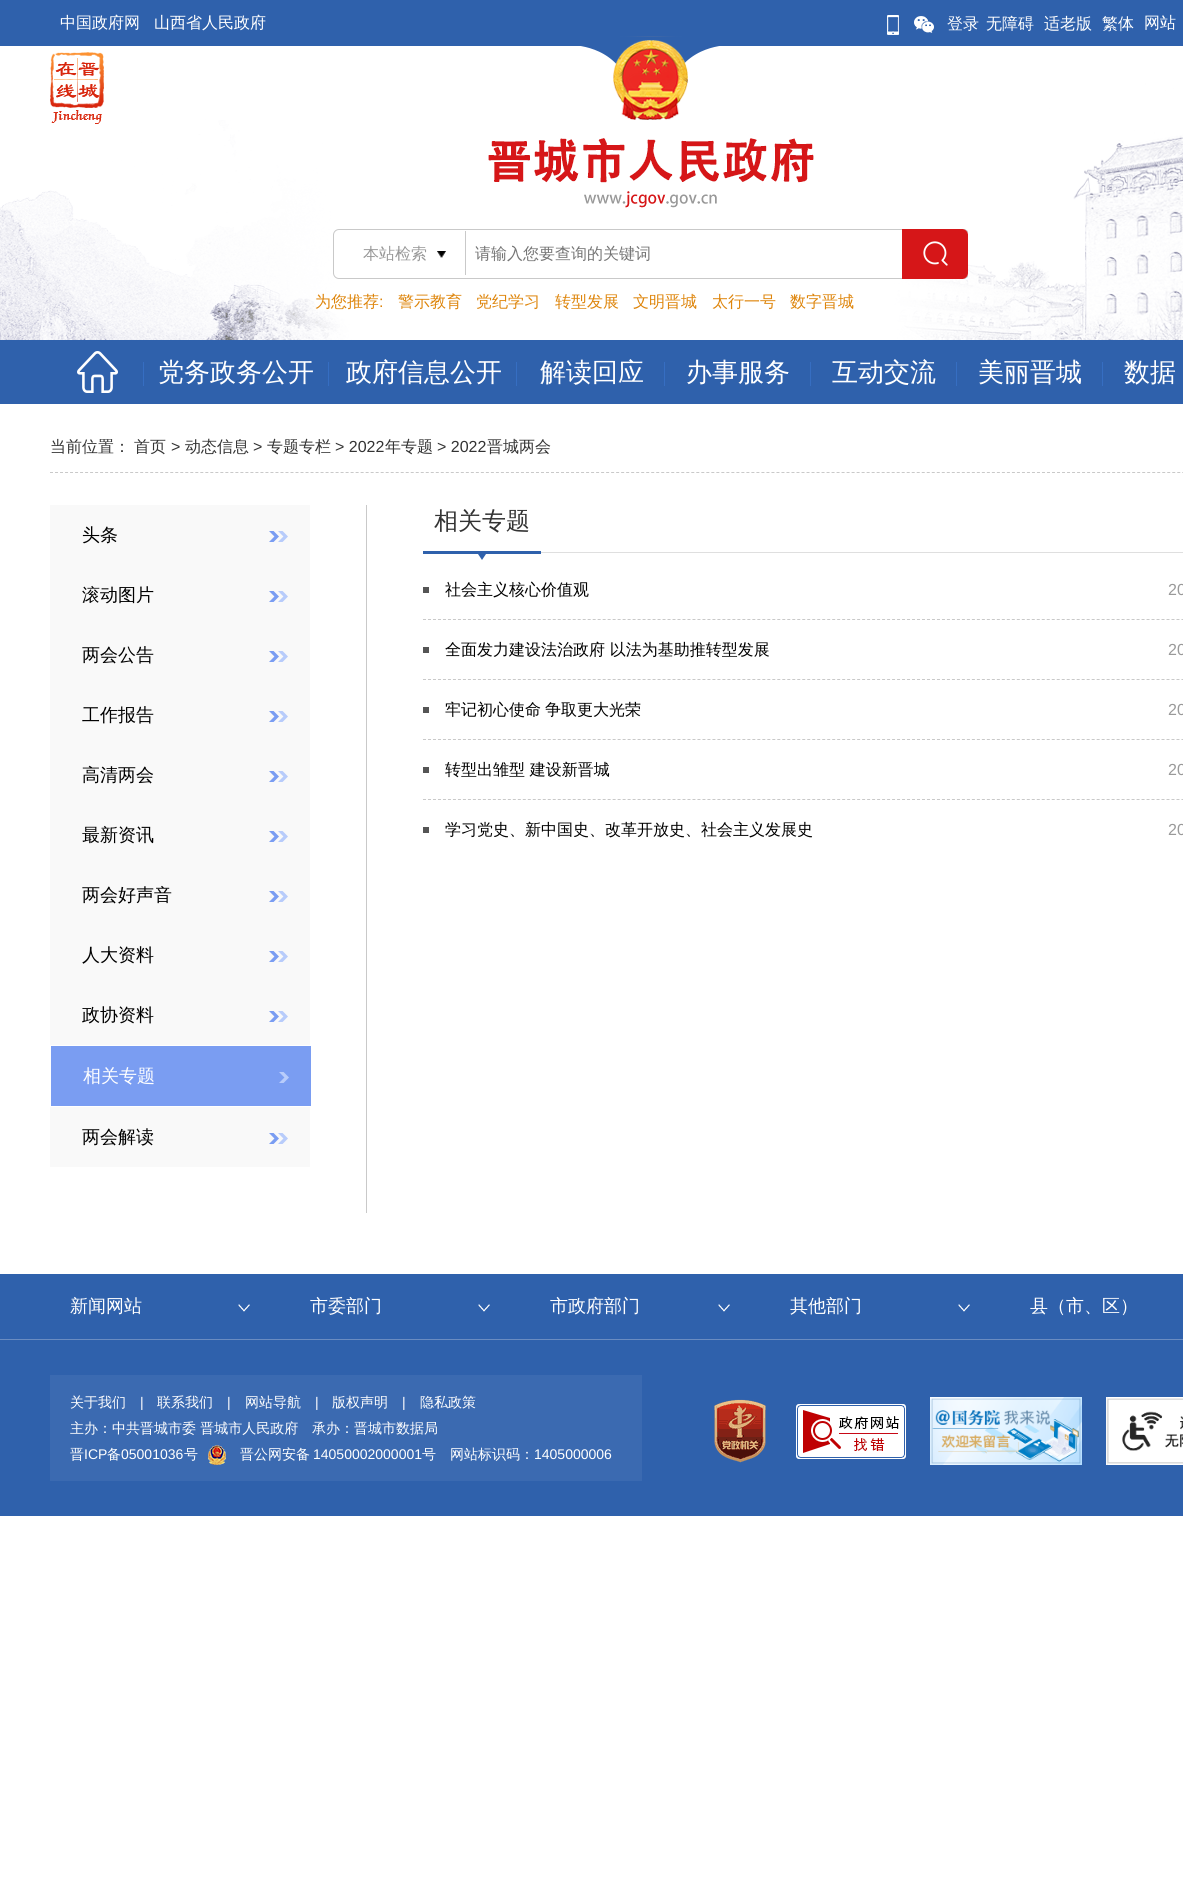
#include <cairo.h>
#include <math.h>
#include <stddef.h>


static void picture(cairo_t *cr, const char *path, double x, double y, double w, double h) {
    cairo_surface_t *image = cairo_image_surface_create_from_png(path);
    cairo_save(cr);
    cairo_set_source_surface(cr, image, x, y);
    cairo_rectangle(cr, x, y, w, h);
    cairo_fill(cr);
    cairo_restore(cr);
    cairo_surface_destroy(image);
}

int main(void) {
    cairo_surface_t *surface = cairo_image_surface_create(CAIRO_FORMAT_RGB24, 1183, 1887);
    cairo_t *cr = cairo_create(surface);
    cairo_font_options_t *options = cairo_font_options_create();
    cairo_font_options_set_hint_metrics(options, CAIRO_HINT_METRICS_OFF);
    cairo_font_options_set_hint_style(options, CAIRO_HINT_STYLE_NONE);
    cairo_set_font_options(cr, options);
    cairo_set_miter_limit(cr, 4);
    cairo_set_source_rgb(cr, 1, 1, 1);
    cairo_paint(cr);
    cairo_set_source_rgb(cr, 0.184, 0.38, 0.675);
    cairo_rectangle(cr, 0, 0, 1183, 46);
    cairo_fill(cr);
    cairo_select_font_face(cr, "WenQuanYi Zen Hei Medium", CAIRO_FONT_SLANT_NORMAL, CAIRO_FONT_WEIGHT_NORMAL);
    cairo_set_font_size(cr, 16);
    cairo_set_source_rgb(cr, 1, 1, 1);
    cairo_move_to(cr, 60, 28);
    cairo_show_text(cr, "中国政府网");
    cairo_move_to(cr, 154, 28);
    cairo_show_text(cr, "山西省人民政府");
    picture(cr, "img1.png", 887, 15, 12, 20);
    picture(cr, "img2.png", 914, 16, 20, 17);
    cairo_move_to(cr, 947, 29);
    cairo_show_text(cr, "登录");
    cairo_move_to(cr, 986, 29);
    cairo_show_text(cr, "无障碍");
    cairo_move_to(cr, 1044, 29);
    cairo_show_text(cr, "适老版");
    cairo_move_to(cr, 1102, 29);
    cairo_show_text(cr, "繁体");
    cairo_move_to(cr, 1144, 28);
    cairo_show_text(cr, "网站");
    picture(cr, "img3.png", 0, 46, 1183, 294);
    picture(cr, "img4.png", 50, 52, 54, 72);
    picture(cr, "img5.png", 488, 36, 326, 172);
    picture(cr, "img6.png", 333, 229, 635, 50);
    cairo_set_source_rgb(cr, 0.788, 0.788, 0.788);
    cairo_rectangle(cr, 465, 231, 1, 44);
    cairo_fill(cr);
    cairo_set_source_rgb(cr, 0.6, 0.6, 0.6);
    cairo_move_to(cr, 363, 259);
    cairo_show_text(cr, "本站检索");
    picture(cr, "img7.png", 437, 251, 9, 7);
    cairo_set_source_rgb(cr, 0.459, 0.459, 0.459);
    cairo_move_to(cr, 475, 259);
    cairo_show_text(cr, "请输入您要查询的关键词");
    picture(cr, "img8.png", 902, 229, 66, 50);
    cairo_set_source_rgb(cr, 0.871, 0.522, 0.043);
    cairo_move_to(cr, 315, 307);
    cairo_show_text(cr, "为您推荐");
    cairo_select_font_face(cr, "Liberation Sans", CAIRO_FONT_SLANT_NORMAL, CAIRO_FONT_WEIGHT_NORMAL);
    cairo_move_to(cr, 379, 307);
    cairo_show_text(cr, ":");
    cairo_select_font_face(cr, "WenQuanYi Zen Hei Medium", CAIRO_FONT_SLANT_NORMAL, CAIRO_FONT_WEIGHT_NORMAL);
    cairo_move_to(cr, 398, 307);
    cairo_show_text(cr, "警示教育");
    cairo_move_to(cr, 476, 307);
    cairo_show_text(cr, "党纪学习");
    cairo_move_to(cr, 555, 307);
    cairo_show_text(cr, "转型发展");
    cairo_move_to(cr, 633, 307);
    cairo_show_text(cr, "文明晋城");
    cairo_move_to(cr, 712, 307);
    cairo_show_text(cr, "太行一号");
    cairo_move_to(cr, 790, 307);
    cairo_show_text(cr, "数字晋城");
    cairo_set_source_rgb(cr, 0.184, 0.38, 0.675);
    cairo_rectangle(cr, 0, 340, 1183, 64);
    cairo_fill(cr);
    picture(cr, "img9.png", 77, 351, 41, 42);
    cairo_set_source_rgb(cr, 0.212, 0.431, 0.761);
    cairo_rectangle(cr, 143, 362, 1, 24);
    cairo_fill(cr);
    cairo_set_font_size(cr, 26);
    cairo_set_source_rgb(cr, 1, 1, 1);
    cairo_move_to(cr, 158, 381);
    cairo_show_text(cr, "党务政务公开");
    cairo_set_source_rgb(cr, 0.212, 0.431, 0.761);
    cairo_rectangle(cr, 328, 362, 1, 24);
    cairo_fill(cr);
    cairo_set_source_rgb(cr, 1, 1, 1);
    cairo_move_to(cr, 346, 381);
    cairo_show_text(cr, "政府信息公开");
    cairo_set_source_rgb(cr, 0.212, 0.431, 0.761);
    cairo_rectangle(cr, 516, 362, 1, 24);
    cairo_fill(cr);
    cairo_set_source_rgb(cr, 1, 1, 1);
    cairo_move_to(cr, 540, 381);
    cairo_show_text(cr, "解读回应");
    cairo_set_source_rgb(cr, 0.212, 0.431, 0.761);
    cairo_rectangle(cr, 664, 362, 1, 24);
    cairo_fill(cr);
    cairo_set_source_rgb(cr, 1, 1, 1);
    cairo_move_to(cr, 686, 381);
    cairo_show_text(cr, "办事服务");
    cairo_set_source_rgb(cr, 0.212, 0.431, 0.761);
    cairo_rectangle(cr, 810, 362, 1, 24);
    cairo_fill(cr);
    cairo_set_source_rgb(cr, 1, 1, 1);
    cairo_move_to(cr, 832, 381);
    cairo_show_text(cr, "互动交流");
    cairo_set_source_rgb(cr, 0.212, 0.431, 0.761);
    cairo_rectangle(cr, 956, 362, 1, 24);
    cairo_fill(cr);
    cairo_set_source_rgb(cr, 1, 1, 1);
    cairo_move_to(cr, 978, 381);
    cairo_show_text(cr, "美丽晋城");
    cairo_set_source_rgb(cr, 0.212, 0.431, 0.761);
    cairo_rectangle(cr, 1102, 362, 1, 24);
    cairo_fill(cr);
    cairo_set_source_rgb(cr, 1, 1, 1);
    cairo_move_to(cr, 1124, 381);
    cairo_show_text(cr, "数据");
    cairo_new_path(cr);
    cairo_move_to(cr, 50, 472.5);
    cairo_line_to(cr, 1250, 472.5);
    cairo_set_source_rgb(cr, 0.788, 0.788, 0.788);
    cairo_set_line_width(cr, 1);
    cairo_set_dash(cr, (double[]){3, 2.01}, 2, 0);
    cairo_stroke(cr);
    cairo_set_font_size(cr, 16);
    cairo_set_source_rgb(cr, 0.2, 0.2, 0.2);
    cairo_move_to(cr, 50, 452);
    cairo_show_text(cr, "当前位置：");
    cairo_move_to(cr, 134, 452);
    cairo_show_text(cr, "首页");
    cairo_select_font_face(cr, "Liberation Sans", CAIRO_FONT_SLANT_NORMAL, CAIRO_FONT_WEIGHT_NORMAL);
    cairo_move_to(cr, 171, 452);
    cairo_show_text(cr, ">");
    cairo_select_font_face(cr, "WenQuanYi Zen Hei Medium", CAIRO_FONT_SLANT_NORMAL, CAIRO_FONT_WEIGHT_NORMAL);
    cairo_move_to(cr, 185, 452);
    cairo_show_text(cr, "动态信息");
    cairo_select_font_face(cr, "Liberation Sans", CAIRO_FONT_SLANT_NORMAL, CAIRO_FONT_WEIGHT_NORMAL);
    cairo_move_to(cr, 253, 452);
    cairo_show_text(cr, ">");
    cairo_select_font_face(cr, "WenQuanYi Zen Hei Medium", CAIRO_FONT_SLANT_NORMAL, CAIRO_FONT_WEIGHT_NORMAL);
    cairo_move_to(cr, 267, 452);
    cairo_show_text(cr, "专题专栏");
    cairo_select_font_face(cr, "Liberation Sans", CAIRO_FONT_SLANT_NORMAL, CAIRO_FONT_WEIGHT_NORMAL);
    cairo_move_to(cr, 335, 452);
    cairo_show_text(cr, "> 2022");
    cairo_select_font_face(cr, "WenQuanYi Zen Hei Medium", CAIRO_FONT_SLANT_NORMAL, CAIRO_FONT_WEIGHT_NORMAL);
    cairo_move_to(cr, 385, 452);
    cairo_show_text(cr, "年专题");
    cairo_select_font_face(cr, "Liberation Sans", CAIRO_FONT_SLANT_NORMAL, CAIRO_FONT_WEIGHT_NORMAL);
    cairo_move_to(cr, 437, 452);
    cairo_show_text(cr, "> 2022");
    cairo_select_font_face(cr, "WenQuanYi Zen Hei Medium", CAIRO_FONT_SLANT_NORMAL, CAIRO_FONT_WEIGHT_NORMAL);
    cairo_move_to(cr, 487, 452);
    cairo_show_text(cr, "晋城两会");
    cairo_set_source_rgb(cr, 0.788, 0.788, 0.788);
    cairo_rectangle(cr, 366, 505, 1, 708);
    cairo_fill(cr);
    cairo_set_source_rgb(cr, 0.976, 0.976, 0.976);
    cairo_rectangle(cr, 50, 505, 260, 662);
    cairo_fill(cr);
    cairo_set_font_size(cr, 18);
    cairo_set_source_rgb(cr, 0, 0, 0);
    cairo_move_to(cr, 82, 541);
    cairo_show_text(cr, "头条");
    picture(cr, "img10.png", 269, 531, 19, 11);
    cairo_move_to(cr, 82, 601);
    cairo_show_text(cr, "滚动图片");
    picture(cr, "img10.png", 269, 591, 19, 11);
    cairo_move_to(cr, 82, 661);
    cairo_show_text(cr, "两会公告");
    picture(cr, "img10.png", 269, 651, 19, 11);
    cairo_move_to(cr, 82, 721);
    cairo_show_text(cr, "工作报告");
    picture(cr, "img10.png", 269, 711, 19, 11);
    cairo_move_to(cr, 82, 781);
    cairo_show_text(cr, "高清两会");
    picture(cr, "img10.png", 269, 771, 19, 11);
    cairo_move_to(cr, 82, 841);
    cairo_show_text(cr, "最新资讯");
    picture(cr, "img10.png", 269, 831, 19, 11);
    cairo_move_to(cr, 82, 901);
    cairo_show_text(cr, "两会好声音");
    picture(cr, "img10.png", 269, 891, 19, 11);
    cairo_move_to(cr, 82, 961);
    cairo_show_text(cr, "人大资料");
    picture(cr, "img10.png", 269, 951, 19, 11);
    cairo_move_to(cr, 82, 1021);
    cairo_show_text(cr, "政协资料");
    picture(cr, "img10.png", 269, 1011, 19, 11);
    cairo_set_source_rgb(cr, 0.478, 0.616, 0.949);
    cairo_rectangle(cr, 50.5, 1045.5, 261, 61);
    cairo_fill_preserve(cr);
    cairo_set_source_rgb(cr, 1, 1, 1);
    cairo_set_dash(cr, NULL, 0, 0);
    cairo_stroke(cr);
    cairo_move_to(cr, 83, 1082);
    cairo_show_text(cr, "相关专题");
    picture(cr, "img11.png", 279, 1072, 10, 11);
    cairo_set_source_rgb(cr, 0, 0, 0);
    cairo_move_to(cr, 82, 1143);
    cairo_show_text(cr, "两会解读");
    picture(cr, "img10.png", 269, 1133, 19, 11);
    cairo_set_source_rgb(cr, 0.875, 0.875, 0.875);
    cairo_rectangle(cr, 541, 552, 642, 1);
    cairo_fill(cr);
    cairo_set_source_rgb(cr, 0.184, 0.38, 0.675);
    cairo_rectangle(cr, 423, 551, 118, 3);
    cairo_fill(cr);
    cairo_set_font_size(cr, 24);
    cairo_set_source_rgb(cr, 0.2, 0.2, 0.2);
    cairo_move_to(cr, 434, 529);
    cairo_show_text(cr, "相关专题");
    cairo_set_source_rgb(cr, 0.184, 0.38, 0.675);
    cairo_new_path(cr);
    cairo_move_to(cr, 478, 554);
    cairo_line_to(cr, 486, 554);
    cairo_line_to(cr, 482, 560);
    cairo_close_path(cr);
    cairo_fill(cr);
    cairo_set_source_rgb(cr, 0.333, 0.333, 0.333);
    cairo_rectangle(cr, 423, 587, 6, 6);
    cairo_fill(cr);
    cairo_new_path(cr);
    cairo_move_to(cr, 423, 619.5);
    cairo_line_to(cr, 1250, 619.5);
    cairo_set_source_rgb(cr, 0.788, 0.788, 0.788);
    cairo_set_dash(cr, (double[]){3, 1.99}, 2, 0);
    cairo_stroke(cr);
    cairo_set_font_size(cr, 16);
    cairo_set_source_rgb(cr, 0, 0, 0);
    cairo_move_to(cr, 445, 595);
    cairo_show_text(cr, "社会主义核心价值观");
    cairo_select_font_face(cr, "Liberation Sans", CAIRO_FONT_SLANT_NORMAL, CAIRO_FONT_WEIGHT_NORMAL);
    cairo_set_source_rgb(cr, 0.6, 0.6, 0.6);
    cairo_move_to(cr, 1168, 595);
    cairo_show_text(cr, "20");
    cairo_set_source_rgb(cr, 0.333, 0.333, 0.333);
    cairo_rectangle(cr, 423, 647, 6, 6);
    cairo_fill(cr);
    cairo_new_path(cr);
    cairo_move_to(cr, 423, 679.5);
    cairo_line_to(cr, 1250, 679.5);
    cairo_set_source_rgb(cr, 0.788, 0.788, 0.788);
    cairo_stroke(cr);
    cairo_select_font_face(cr, "WenQuanYi Zen Hei Medium", CAIRO_FONT_SLANT_NORMAL, CAIRO_FONT_WEIGHT_NORMAL);
    cairo_set_source_rgb(cr, 0, 0, 0);
    cairo_move_to(cr, 445, 655);
    cairo_show_text(cr, "全面发力建设法治政府 以法为基助推转型发展");
    cairo_select_font_face(cr, "Liberation Sans", CAIRO_FONT_SLANT_NORMAL, CAIRO_FONT_WEIGHT_NORMAL);
    cairo_set_source_rgb(cr, 0.6, 0.6, 0.6);
    cairo_move_to(cr, 1168, 655);
    cairo_show_text(cr, "20");
    cairo_set_source_rgb(cr, 0.333, 0.333, 0.333);
    cairo_rectangle(cr, 423, 707, 6, 6);
    cairo_fill(cr);
    cairo_new_path(cr);
    cairo_move_to(cr, 423, 739.5);
    cairo_line_to(cr, 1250, 739.5);
    cairo_set_source_rgb(cr, 0.788, 0.788, 0.788);
    cairo_stroke(cr);
    cairo_select_font_face(cr, "WenQuanYi Zen Hei Medium", CAIRO_FONT_SLANT_NORMAL, CAIRO_FONT_WEIGHT_NORMAL);
    cairo_set_source_rgb(cr, 0, 0, 0);
    cairo_move_to(cr, 445, 715);
    cairo_show_text(cr, "牢记初心使命");
    cairo_move_to(cr, 545, 715);
    cairo_show_text(cr, "争取更大光荣");
    cairo_select_font_face(cr, "Liberation Sans", CAIRO_FONT_SLANT_NORMAL, CAIRO_FONT_WEIGHT_NORMAL);
    cairo_set_source_rgb(cr, 0.6, 0.6, 0.6);
    cairo_move_to(cr, 1168, 715);
    cairo_show_text(cr, "20");
    cairo_set_source_rgb(cr, 0.333, 0.333, 0.333);
    cairo_rectangle(cr, 423, 767, 6, 6);
    cairo_fill(cr);
    cairo_new_path(cr);
    cairo_move_to(cr, 423, 799.5);
    cairo_line_to(cr, 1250, 799.5);
    cairo_set_source_rgb(cr, 0.788, 0.788, 0.788);
    cairo_stroke(cr);
    cairo_select_font_face(cr, "WenQuanYi Zen Hei Medium", CAIRO_FONT_SLANT_NORMAL, CAIRO_FONT_WEIGHT_NORMAL);
    cairo_set_source_rgb(cr, 0, 0, 0);
    cairo_move_to(cr, 445, 775);
    cairo_show_text(cr, "转型出雏型 建设新晋城");
    cairo_select_font_face(cr, "Liberation Sans", CAIRO_FONT_SLANT_NORMAL, CAIRO_FONT_WEIGHT_NORMAL);
    cairo_set_source_rgb(cr, 0.6, 0.6, 0.6);
    cairo_move_to(cr, 1168, 775);
    cairo_show_text(cr, "20");
    cairo_set_source_rgb(cr, 0.333, 0.333, 0.333);
    cairo_rectangle(cr, 423, 827, 6, 6);
    cairo_fill(cr);
    cairo_select_font_face(cr, "WenQuanYi Zen Hei Medium", CAIRO_FONT_SLANT_NORMAL, CAIRO_FONT_WEIGHT_NORMAL);
    cairo_set_source_rgb(cr, 0, 0, 0);
    cairo_move_to(cr, 445, 835);
    cairo_show_text(cr, "学习党史、新中国史、改革开放史、社会主义发展史");
    cairo_select_font_face(cr, "Liberation Sans", CAIRO_FONT_SLANT_NORMAL, CAIRO_FONT_WEIGHT_NORMAL);
    cairo_set_source_rgb(cr, 0.6, 0.6, 0.6);
    cairo_move_to(cr, 1168, 835);
    cairo_show_text(cr, "20");
    cairo_set_source_rgb(cr, 0.184, 0.38, 0.675);
    cairo_rectangle(cr, 0, 1274, 1183, 242);
    cairo_fill(cr);
    cairo_set_source_rgb(cr, 0.416, 0.549, 0.757);
    cairo_rectangle(cr, 0, 1339, 1183, 1);
    cairo_fill(cr);
    cairo_select_font_face(cr, "WenQuanYi Zen Hei Medium", CAIRO_FONT_SLANT_NORMAL, CAIRO_FONT_WEIGHT_NORMAL);
    cairo_set_font_size(cr, 18);
    cairo_set_source_rgb(cr, 1, 1, 1);
    cairo_move_to(cr, 70, 1312);
    cairo_show_text(cr, "新闻网站");
    picture(cr, "img12.png", 238, 1304, 12, 8);
    cairo_move_to(cr, 310, 1312);
    cairo_show_text(cr, "市委部门");
    picture(cr, "img12.png", 478, 1304, 12, 8);
    cairo_move_to(cr, 550, 1312);
    cairo_show_text(cr, "市政府部门");
    picture(cr, "img12.png", 718, 1304, 12, 8);
    cairo_move_to(cr, 790, 1312);
    cairo_show_text(cr, "其他部门");
    picture(cr, "img12.png", 958, 1304, 12, 8);
    cairo_move_to(cr, 1030, 1312);
    cairo_show_text(cr, "县（市、区）");
    cairo_set_source_rgb(cr, 0.231, 0.416, 0.694);
    cairo_rectangle(cr, 50, 1375, 592, 106);
    cairo_fill(cr);
    cairo_set_font_size(cr, 14);
    cairo_set_source_rgb(cr, 1, 1, 1);
    cairo_move_to(cr, 70, 1407);
    cairo_show_text(cr, "关于我们");
    cairo_select_font_face(cr, "Liberation Sans", CAIRO_FONT_SLANT_NORMAL, CAIRO_FONT_WEIGHT_NORMAL);
    cairo_move_to(cr, 140, 1407);
    cairo_show_text(cr, "|");
    cairo_select_font_face(cr, "WenQuanYi Zen Hei Medium", CAIRO_FONT_SLANT_NORMAL, CAIRO_FONT_WEIGHT_NORMAL);
    cairo_move_to(cr, 157, 1407);
    cairo_show_text(cr, "联系我们");
    cairo_select_font_face(cr, "Liberation Sans", CAIRO_FONT_SLANT_NORMAL, CAIRO_FONT_WEIGHT_NORMAL);
    cairo_move_to(cr, 227, 1407);
    cairo_show_text(cr, "|");
    cairo_select_font_face(cr, "WenQuanYi Zen Hei Medium", CAIRO_FONT_SLANT_NORMAL, CAIRO_FONT_WEIGHT_NORMAL);
    cairo_move_to(cr, 245, 1407);
    cairo_show_text(cr, "网站导航");
    cairo_select_font_face(cr, "Liberation Sans", CAIRO_FONT_SLANT_NORMAL, CAIRO_FONT_WEIGHT_NORMAL);
    cairo_move_to(cr, 315, 1407);
    cairo_show_text(cr, "|");
    cairo_select_font_face(cr, "WenQuanYi Zen Hei Medium", CAIRO_FONT_SLANT_NORMAL, CAIRO_FONT_WEIGHT_NORMAL);
    cairo_move_to(cr, 332, 1407);
    cairo_show_text(cr, "版权声明");
    cairo_select_font_face(cr, "Liberation Sans", CAIRO_FONT_SLANT_NORMAL, CAIRO_FONT_WEIGHT_NORMAL);
    cairo_move_to(cr, 402, 1407);
    cairo_show_text(cr, "|");
    cairo_select_font_face(cr, "WenQuanYi Zen Hei Medium", CAIRO_FONT_SLANT_NORMAL, CAIRO_FONT_WEIGHT_NORMAL);
    cairo_move_to(cr, 420, 1407);
    cairo_show_text(cr, "隐私政策");
    cairo_move_to(cr, 70, 1433);
    cairo_show_text(cr, "主办：中共晋城市委 晋城市人民政府");
    cairo_move_to(cr, 312, 1433);
    cairo_show_text(cr, "承办：晋城市数据局");
    cairo_move_to(cr, 70, 1459);
    cairo_show_text(cr, "晋");
    cairo_select_font_face(cr, "Liberation Sans", CAIRO_FONT_SLANT_NORMAL, CAIRO_FONT_WEIGHT_NORMAL);
    cairo_move_to(cr, 84, 1459);
    cairo_show_text(cr, "ICP");
    cairo_select_font_face(cr, "WenQuanYi Zen Hei Medium", CAIRO_FONT_SLANT_NORMAL, CAIRO_FONT_WEIGHT_NORMAL);
    cairo_move_to(cr, 107, 1459);
    cairo_show_text(cr, "备");
    cairo_select_font_face(cr, "Liberation Sans", CAIRO_FONT_SLANT_NORMAL, CAIRO_FONT_WEIGHT_NORMAL);
    cairo_move_to(cr, 121, 1459);
    cairo_show_text(cr, "05001036");
    cairo_select_font_face(cr, "WenQuanYi Zen Hei Medium", CAIRO_FONT_SLANT_NORMAL, CAIRO_FONT_WEIGHT_NORMAL);
    cairo_move_to(cr, 184, 1459);
    cairo_show_text(cr, "号");
    picture(cr, "img13.png", 208, 1445, 18, 20);
    cairo_move_to(cr, 240, 1459);
    cairo_show_text(cr, "晋公网安备");
    cairo_select_font_face(cr, "Liberation Sans", CAIRO_FONT_SLANT_NORMAL, CAIRO_FONT_WEIGHT_NORMAL);
    cairo_move_to(cr, 313, 1459);
    cairo_show_text(cr, "14050002000001");
    cairo_select_font_face(cr, "WenQuanYi Zen Hei Medium", CAIRO_FONT_SLANT_NORMAL, CAIRO_FONT_WEIGHT_NORMAL);
    cairo_move_to(cr, 422, 1459);
    cairo_show_text(cr, "号");
    cairo_move_to(cr, 450, 1459);
    cairo_show_text(cr, "网站标识码：");
    cairo_select_font_face(cr, "Liberation Sans", CAIRO_FONT_SLANT_NORMAL, CAIRO_FONT_WEIGHT_NORMAL);
    cairo_move_to(cr, 534, 1459);
    cairo_show_text(cr, "1405000006");
    picture(cr, "img14.png", 714, 1399, 52, 64);
    picture(cr, "img15.png", 796, 1404, 110, 55);
    picture(cr, "img16.png", 930, 1397, 152, 68);
    picture(cr, "img17.png", 1106, 1397, 77, 68);
    cairo_surface_write_to_png(surface, "page.png");
    cairo_font_options_destroy(options);
    cairo_destroy(cr);
    cairo_surface_destroy(surface);
    return 0;
}
